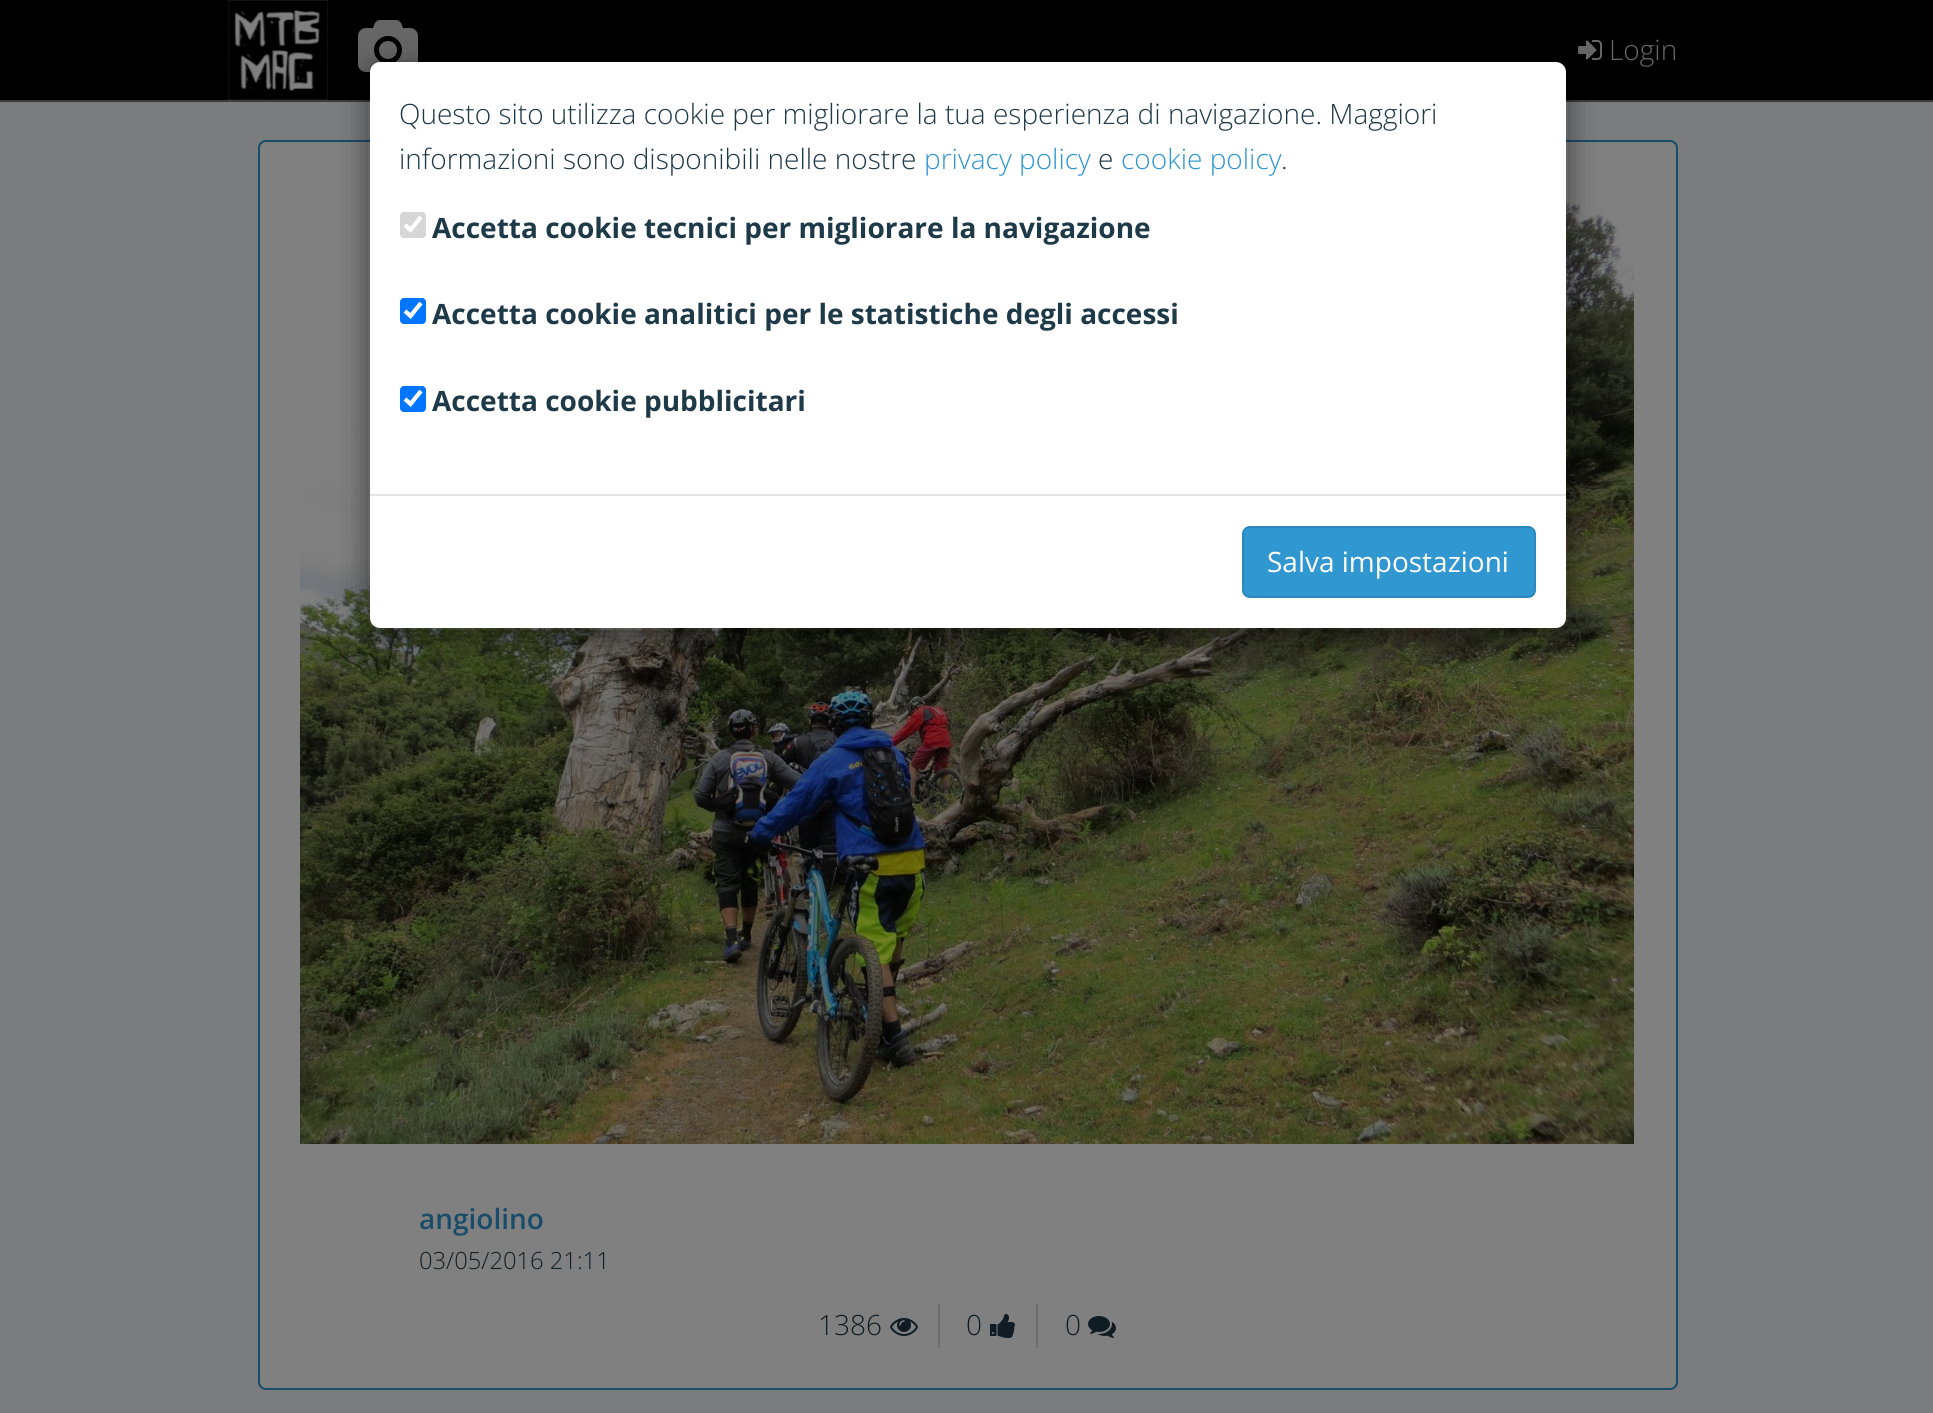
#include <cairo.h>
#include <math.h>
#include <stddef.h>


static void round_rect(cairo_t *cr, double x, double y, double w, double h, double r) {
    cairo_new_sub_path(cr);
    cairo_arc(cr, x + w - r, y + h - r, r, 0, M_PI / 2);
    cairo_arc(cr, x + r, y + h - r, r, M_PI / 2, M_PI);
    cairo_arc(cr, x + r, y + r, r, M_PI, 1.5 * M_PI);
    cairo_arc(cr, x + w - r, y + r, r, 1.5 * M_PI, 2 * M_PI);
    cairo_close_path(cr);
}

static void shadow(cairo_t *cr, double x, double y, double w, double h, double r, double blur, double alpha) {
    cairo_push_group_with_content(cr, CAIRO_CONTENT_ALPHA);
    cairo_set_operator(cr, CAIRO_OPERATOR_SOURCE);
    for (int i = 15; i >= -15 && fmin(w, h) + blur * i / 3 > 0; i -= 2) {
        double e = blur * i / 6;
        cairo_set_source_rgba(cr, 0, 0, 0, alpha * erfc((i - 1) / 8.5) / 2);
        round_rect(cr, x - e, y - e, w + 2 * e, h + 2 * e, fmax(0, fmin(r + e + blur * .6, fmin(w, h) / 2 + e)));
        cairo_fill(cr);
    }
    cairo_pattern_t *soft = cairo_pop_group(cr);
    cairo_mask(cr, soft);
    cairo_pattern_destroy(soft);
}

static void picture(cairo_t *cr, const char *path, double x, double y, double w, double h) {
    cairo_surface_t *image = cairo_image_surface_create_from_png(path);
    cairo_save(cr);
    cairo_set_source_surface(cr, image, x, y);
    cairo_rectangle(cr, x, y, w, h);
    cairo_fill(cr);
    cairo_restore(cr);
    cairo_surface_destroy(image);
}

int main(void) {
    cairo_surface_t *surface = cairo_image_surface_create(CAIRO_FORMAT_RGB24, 1933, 1413);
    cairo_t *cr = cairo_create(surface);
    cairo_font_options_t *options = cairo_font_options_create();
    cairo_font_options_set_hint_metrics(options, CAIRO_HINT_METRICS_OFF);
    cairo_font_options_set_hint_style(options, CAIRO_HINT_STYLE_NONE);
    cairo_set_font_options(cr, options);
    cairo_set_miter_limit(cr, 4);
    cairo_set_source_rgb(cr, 0.482, 0.486, 0.49);
    cairo_paint(cr);
    cairo_set_source_rgb(cr, 0, 0, 0);
    cairo_rectangle(cr, 0, 0, 1933, 100);
    cairo_fill(cr);
    cairo_set_source_rgb(cr, 0.235, 0.235, 0.235);
    cairo_rectangle(cr, 0, 100, 1933, 2);
    cairo_fill(cr);
    picture(cr, "img1.png", 227, 0, 101, 100);
    picture(cr, "img2.png", 358, 20, 60, 52);
    picture(cr, "img3.png", 1578, 40, 24, 20);
    cairo_select_font_face(cr, "Open Sans Light", CAIRO_FONT_SLANT_NORMAL, CAIRO_FONT_WEIGHT_NORMAL);
    cairo_set_font_size(cr, 28);
    cairo_set_source_rgb(cr, 0.4, 0.4, 0.4);
    cairo_move_to(cr, 1609, 60);
    cairo_show_text(cr, "Login");
    cairo_set_source_rgb(cr, 0.502, 0.502, 0.502);
    round_rect(cr, 259, 141, 1418, 1248, 7);
    cairo_fill_preserve(cr);
    cairo_set_source_rgb(cr, 0.094, 0.298, 0.412);
    cairo_stroke(cr);
    picture(cr, "img4.png", 300, 200, 1334, 944);
    cairo_save(cr);
    cairo_set_fill_rule(cr, CAIRO_FILL_RULE_EVEN_ODD);
    cairo_new_path(cr);
    cairo_move_to(cr, 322, 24);
    cairo_line_to(cr, 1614, 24);
    cairo_line_to(cr, 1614, 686);
    cairo_line_to(cr, 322, 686);
    cairo_close_path(cr);
    cairo_move_to(cr, 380, 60);
    cairo_line_to(cr, 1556, 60);
    cairo_curve_to(cr, 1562.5, 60, 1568, 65.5, 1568, 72);
    cairo_line_to(cr, 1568, 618);
    cairo_curve_to(cr, 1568, 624.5, 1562.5, 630, 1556, 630);
    cairo_line_to(cr, 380, 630);
    cairo_curve_to(cr, 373.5, 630, 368, 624.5, 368, 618);
    cairo_line_to(cr, 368, 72);
    cairo_curve_to(cr, 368, 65.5, 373.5, 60, 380, 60);
    cairo_close_path(cr);
    cairo_clip(cr);
    cairo_set_source_rgb(cr, 0, 0, 0);
    shadow(cr, 368, 70, 1200, 570, 12, 15, 0.5);
    cairo_restore(cr);
    cairo_set_source_rgb(cr, 1, 1, 1);
    round_rect(cr, 370, 62, 1196, 566, 10);
    cairo_fill(cr);
    round_rect(cr, 369, 61, 1198, 568, 11);
    cairo_set_source_rgba(cr, 0, 0, 0, 0.2);
    cairo_stroke(cr);
    cairo_set_source_rgb(cr, 0.118, 0.224, 0.282);
    cairo_move_to(cr, 399, 124);
    cairo_show_text(cr, "Questo sito utilizza cookie per migliorare la tua esperienza di navigazione. Maggiori");
    cairo_move_to(cr, 399, 169);
    cairo_show_text(cr, "informazioni sono disponibili nelle nostre");
    cairo_set_source_rgb(cr, 0.188, 0.592, 0.82);
    cairo_move_to(cr, 924, 169);
    cairo_show_text(cr, "privacy policy");
    cairo_set_source_rgb(cr, 0.118, 0.224, 0.282);
    cairo_move_to(cr, 1098, 169);
    cairo_show_text(cr, "e");
    cairo_set_source_rgb(cr, 0.188, 0.592, 0.82);
    cairo_move_to(cr, 1121, 169);
    cairo_show_text(cr, "cookie policy");
    cairo_set_source_rgb(cr, 0.118, 0.224, 0.282);
    cairo_move_to(cr, 1281, 169);
    cairo_show_text(cr, ".");
    cairo_set_source_rgb(cr, 0.839, 0.839, 0.839);
    round_rect(cr, 400, 212, 26, 26, 4);
    cairo_fill(cr);
    cairo_new_path(cr);
    cairo_move_to(cr, 405, 225);
    cairo_line_to(cr, 410.5, 230);
    cairo_line_to(cr, 421, 217);
    cairo_set_source_rgb(cr, 1, 1, 1);
    cairo_set_line_width(cr, 4.2);
    cairo_stroke(cr);
    cairo_select_font_face(cr, "Open Sans", CAIRO_FONT_SLANT_NORMAL, CAIRO_FONT_WEIGHT_BOLD);
    cairo_set_source_rgb(cr, 0.118, 0.224, 0.282);
    cairo_move_to(cr, 432, 238);
    cairo_show_text(cr, "Accetta cookie tecnici per migliorare la navigazione");
    cairo_set_source_rgb(cr, 0, 0.459, 1);
    round_rect(cr, 400, 298, 26, 26, 4);
    cairo_fill(cr);
    cairo_new_path(cr);
    cairo_move_to(cr, 405, 311);
    cairo_line_to(cr, 410.5, 316);
    cairo_line_to(cr, 421, 303);
    cairo_set_source_rgb(cr, 1, 1, 1);
    cairo_stroke(cr);
    cairo_set_source_rgb(cr, 0.118, 0.224, 0.282);
    cairo_move_to(cr, 432, 324);
    cairo_show_text(cr, "Accetta cookie analitici per le statistiche degli accessi");
    cairo_set_source_rgb(cr, 0, 0.459, 1);
    round_rect(cr, 400, 386, 26, 26, 4);
    cairo_fill(cr);
    cairo_new_path(cr);
    cairo_move_to(cr, 405, 399);
    cairo_line_to(cr, 410.5, 404);
    cairo_line_to(cr, 421, 391);
    cairo_set_source_rgb(cr, 1, 1, 1);
    cairo_stroke(cr);
    cairo_set_source_rgb(cr, 0.118, 0.224, 0.282);
    cairo_move_to(cr, 432, 411);
    cairo_show_text(cr, "Accetta cookie pubblicitari");
    cairo_set_source_rgb(cr, 0.898, 0.898, 0.898);
    cairo_rectangle(cr, 370, 494, 1196, 2);
    cairo_fill(cr);
    cairo_set_source_rgb(cr, 0.188, 0.592, 0.82);
    round_rect(cr, 1243, 527, 292, 70, 7);
    cairo_fill_preserve(cr);
    cairo_set_source_rgb(cr, 0.165, 0.533, 0.741);
    cairo_set_line_width(cr, 2);
    cairo_stroke(cr);
    cairo_select_font_face(cr, "Open Sans", CAIRO_FONT_SLANT_NORMAL, CAIRO_FONT_WEIGHT_NORMAL);
    cairo_set_source_rgb(cr, 1, 1, 1);
    cairo_move_to(cr, 1267, 572);
    cairo_show_text(cr, "Salva impostazioni");
    cairo_select_font_face(cr, "Open Sans SemiBold", CAIRO_FONT_SLANT_NORMAL, CAIRO_FONT_WEIGHT_NORMAL);
    cairo_set_source_rgb(cr, 0.094, 0.298, 0.412);
    cairo_move_to(cr, 419, 1229);
    cairo_show_text(cr, "angiolino");
    cairo_select_font_face(cr, "Open Sans Light", CAIRO_FONT_SLANT_NORMAL, CAIRO_FONT_WEIGHT_NORMAL);
    cairo_set_font_size(cr, 23.75);
    cairo_set_source_rgb(cr, 0.059, 0.114, 0.141);
    cairo_move_to(cr, 419, 1269);
    cairo_show_text(cr, "03/05/2016 21:11");
    cairo_set_source_rgb(cr, 0.416, 0.431, 0.439);
    cairo_rectangle(cr, 938, 1304, 2, 44);
    cairo_fill(cr);
    cairo_set_font_size(cr, 28);
    cairo_set_source_rgb(cr, 0.059, 0.114, 0.141);
    cairo_move_to(cr, 818, 1335);
    cairo_show_text(cr, "1386");
    picture(cr, "img5.png", 890, 1318, 28, 18);
    cairo_set_source_rgb(cr, 0.416, 0.431, 0.439);
    cairo_rectangle(cr, 1036, 1304, 2, 44);
    cairo_fill(cr);
    cairo_set_source_rgb(cr, 0.059, 0.114, 0.141);
    cairo_move_to(cr, 966, 1335);
    cairo_show_text(cr, "0");
    picture(cr, "img6.png", 990, 1314, 25, 24);
    cairo_move_to(cr, 1065, 1335);
    cairo_show_text(cr, "0");
    picture(cr, "img7.png", 1088, 1316, 28, 22);
    cairo_surface_write_to_png(surface, "page.png");
    cairo_font_options_destroy(options);
    cairo_destroy(cr);
    cairo_surface_destroy(surface);
    return 0;
}
